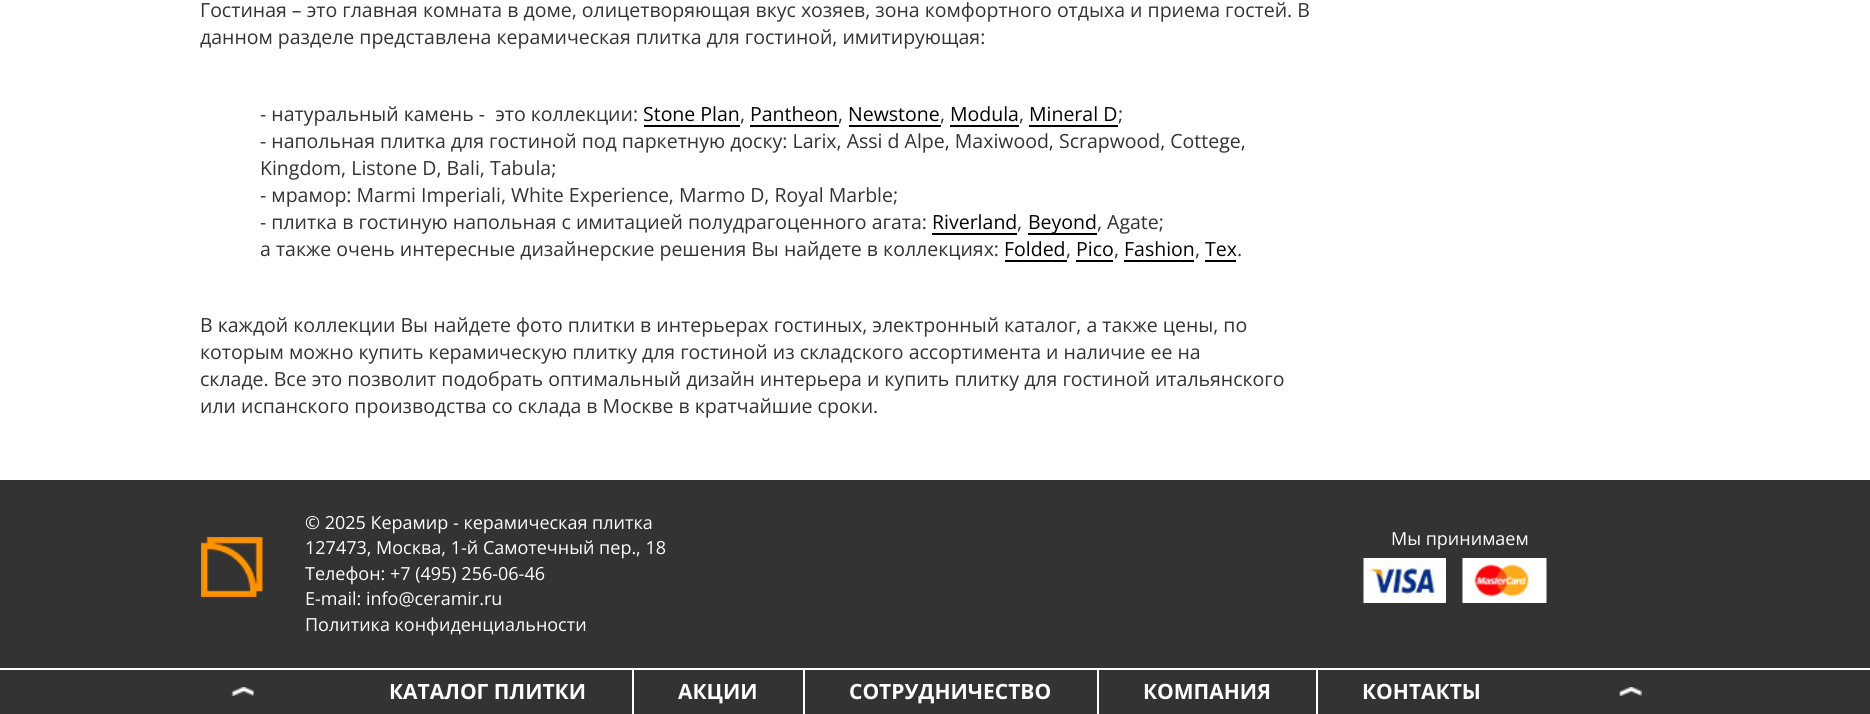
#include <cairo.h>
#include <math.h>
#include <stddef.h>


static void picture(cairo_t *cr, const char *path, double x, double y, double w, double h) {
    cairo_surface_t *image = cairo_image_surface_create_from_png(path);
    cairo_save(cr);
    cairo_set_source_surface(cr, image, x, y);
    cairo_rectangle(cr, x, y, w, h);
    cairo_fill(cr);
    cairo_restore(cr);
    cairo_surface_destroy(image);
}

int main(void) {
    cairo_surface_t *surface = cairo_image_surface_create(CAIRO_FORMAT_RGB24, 1870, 714);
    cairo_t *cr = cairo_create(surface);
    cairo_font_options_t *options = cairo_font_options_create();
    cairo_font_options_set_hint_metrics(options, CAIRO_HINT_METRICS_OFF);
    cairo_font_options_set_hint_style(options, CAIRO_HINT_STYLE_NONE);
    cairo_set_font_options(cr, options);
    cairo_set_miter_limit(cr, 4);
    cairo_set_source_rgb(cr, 1, 1, 1);
    cairo_paint(cr);
    cairo_select_font_face(cr, "Open Sans", CAIRO_FONT_SLANT_NORMAL, CAIRO_FONT_WEIGHT_NORMAL);
    cairo_set_font_size(cr, 19.5);
    cairo_set_source_rgb(cr, 0.2, 0.2, 0.2);
    cairo_move_to(cr, 200, 17);
    cairo_show_text(cr, "Гостиная – это главная комната в доме, олицетворяющая вкус хозяев, зона комфортного отдыха и приема гостей. В");
    cairo_move_to(cr, 200, 44);
    cairo_show_text(cr, "данном разделе представлена керамическая плитка для гостиной, имитирующая:");
    cairo_move_to(cr, 260, 121);
    cairo_show_text(cr, "- натуральный камень -  это коллекции:");
    cairo_set_source_rgb(cr, 0, 0, 0);
    cairo_rectangle(cr, 644, 125, 96, 2);
    cairo_fill(cr);
    cairo_move_to(cr, 643, 121);
    cairo_show_text(cr, "Stone Plan");
    cairo_set_source_rgb(cr, 0.2, 0.2, 0.2);
    cairo_move_to(cr, 740, 121);
    cairo_show_text(cr, ",");
    cairo_set_source_rgb(cr, 0, 0, 0);
    cairo_rectangle(cr, 750, 125, 89, 2);
    cairo_fill(cr);
    cairo_move_to(cr, 750, 121);
    cairo_show_text(cr, "Pantheon");
    cairo_set_source_rgb(cr, 0.2, 0.2, 0.2);
    cairo_move_to(cr, 838, 121);
    cairo_show_text(cr, ",");
    cairo_set_source_rgb(cr, 0, 0, 0);
    cairo_rectangle(cr, 849, 125, 92, 2);
    cairo_fill(cr);
    cairo_move_to(cr, 848, 121);
    cairo_show_text(cr, "Newstone");
    cairo_set_source_rgb(cr, 0.2, 0.2, 0.2);
    cairo_move_to(cr, 940, 121);
    cairo_show_text(cr, ",");
    cairo_set_source_rgb(cr, 0, 0, 0);
    cairo_rectangle(cr, 950, 125, 69, 2);
    cairo_fill(cr);
    cairo_move_to(cr, 950, 121);
    cairo_show_text(cr, "Modula");
    cairo_set_source_rgb(cr, 0.2, 0.2, 0.2);
    cairo_move_to(cr, 1019, 121);
    cairo_show_text(cr, ",");
    cairo_set_source_rgb(cr, 0, 0, 0);
    cairo_rectangle(cr, 1029, 125, 89, 2);
    cairo_fill(cr);
    cairo_move_to(cr, 1029, 121);
    cairo_show_text(cr, "Mineral D");
    cairo_set_source_rgb(cr, 0.2, 0.2, 0.2);
    cairo_move_to(cr, 1118, 121);
    cairo_show_text(cr, ";");
    cairo_move_to(cr, 260, 148);
    cairo_show_text(cr, "- напольная плитка для гостиной под паркетную доску: Larix, Assi d Alpe, Maxiwood, Scrapwood, Cottege,");
    cairo_move_to(cr, 260, 175);
    cairo_show_text(cr, "Kingdom, Listone D, Bali, Tabula;");
    cairo_move_to(cr, 260, 202);
    cairo_show_text(cr, "- мрамор: Marmi Imperiali, White Experience, Marmo D, Royal Marble;");
    cairo_move_to(cr, 260, 229);
    cairo_show_text(cr, "- плитка в гостиную напольная с имитацией полудрагоценного агата:");
    cairo_set_source_rgb(cr, 0, 0, 0);
    cairo_rectangle(cr, 932, 233, 85, 2);
    cairo_fill(cr);
    cairo_move_to(cr, 932, 229);
    cairo_show_text(cr, "Riverland");
    cairo_set_source_rgb(cr, 0.2, 0.2, 0.2);
    cairo_move_to(cr, 1017, 229);
    cairo_show_text(cr, ",");
    cairo_set_source_rgb(cr, 0, 0, 0);
    cairo_rectangle(cr, 1028, 233, 69, 2);
    cairo_fill(cr);
    cairo_move_to(cr, 1028, 229);
    cairo_show_text(cr, "Beyond");
    cairo_set_source_rgb(cr, 0.2, 0.2, 0.2);
    cairo_move_to(cr, 1097, 229);
    cairo_show_text(cr, ", Agate;");
    cairo_move_to(cr, 260, 256);
    cairo_show_text(cr, "а также очень интересные дизайнерские решения Вы найдете в коллекциях:");
    cairo_set_source_rgb(cr, 0, 0, 0);
    cairo_rectangle(cr, 1005, 260, 62, 2);
    cairo_fill(cr);
    cairo_move_to(cr, 1004, 256);
    cairo_show_text(cr, "Folded");
    cairo_set_source_rgb(cr, 0.2, 0.2, 0.2);
    cairo_move_to(cr, 1066, 256);
    cairo_show_text(cr, ",");
    cairo_set_source_rgb(cr, 0, 0, 0);
    cairo_rectangle(cr, 1076, 260, 37, 2);
    cairo_fill(cr);
    cairo_move_to(cr, 1076, 256);
    cairo_show_text(cr, "Pico");
    cairo_set_source_rgb(cr, 0.2, 0.2, 0.2);
    cairo_move_to(cr, 1114, 256);
    cairo_show_text(cr, ",");
    cairo_set_source_rgb(cr, 0, 0, 0);
    cairo_rectangle(cr, 1124, 260, 70, 2);
    cairo_fill(cr);
    cairo_move_to(cr, 1124, 256);
    cairo_show_text(cr, "Fashion");
    cairo_set_source_rgb(cr, 0.2, 0.2, 0.2);
    cairo_move_to(cr, 1195, 256);
    cairo_show_text(cr, ",");
    cairo_set_source_rgb(cr, 0, 0, 0);
    cairo_rectangle(cr, 1205, 260, 31, 2);
    cairo_fill(cr);
    cairo_move_to(cr, 1205, 256);
    cairo_show_text(cr, "Tex");
    cairo_set_source_rgb(cr, 0.2, 0.2, 0.2);
    cairo_move_to(cr, 1237, 256);
    cairo_show_text(cr, ".");
    cairo_move_to(cr, 200, 332);
    cairo_show_text(cr, "В каждой коллекции Вы найдете фото плитки в интерьерах гостиных, электронный каталог, а также цены, по");
    cairo_move_to(cr, 200, 359);
    cairo_show_text(cr, "которым можно купить керамическую плитку для гостиной из складского ассортимента и наличие ее на");
    cairo_move_to(cr, 200, 386);
    cairo_show_text(cr, "складе. Все это позволит подобрать оптимальный дизайн интерьера и купить плитку для гостиной итальянского");
    cairo_move_to(cr, 200, 413);
    cairo_show_text(cr, "или испанского производства со склада в Москве в кратчайшие сроки.");
    cairo_rectangle(cr, 0, 480, 1870, 234);
    cairo_fill(cr);
    picture(cr, "img1.png", 201, 537, 62, 60);
    cairo_set_font_size(cr, 18);
    cairo_set_source_rgb(cr, 1, 1, 1);
    cairo_move_to(cr, 305, 529);
    cairo_show_text(cr, "© 2025 Керамир - керамическая плитка");
    cairo_move_to(cr, 305, 554);
    cairo_show_text(cr, "127473, Москва, 1-й Самотечный пер., 18");
    cairo_move_to(cr, 305, 580);
    cairo_show_text(cr, "Телефон: +7 (495) 256-06-46");
    cairo_move_to(cr, 305, 605);
    cairo_show_text(cr, "E-mail: info@ceramir.ru");
    cairo_move_to(cr, 305, 631);
    cairo_show_text(cr, "Политика конфиденциальности");
    cairo_move_to(cr, 1391, 545);
    cairo_show_text(cr, "Мы принимаем");
    picture(cr, "img2.png", 1363, 558, 83, 45);
    picture(cr, "img3.png", 1462, 558, 85, 45);
    cairo_rectangle(cr, 0, 668, 1870, 2);
    cairo_fill(cr);
    picture(cr, "img4.png", 231, 687, 23, 9);
    cairo_select_font_face(cr, "Open Sans", CAIRO_FONT_SLANT_NORMAL, CAIRO_FONT_WEIGHT_BOLD);
    cairo_set_font_size(cr, 21);
    cairo_move_to(cr, 389, 699);
    cairo_show_text(cr, "КАТАЛОГ ПЛИТКИ");
    cairo_rectangle(cr, 632, 669, 2, 45);
    cairo_fill(cr);
    cairo_move_to(cr, 678, 699);
    cairo_show_text(cr, "АКЦИИ");
    cairo_rectangle(cr, 803, 669, 2, 45);
    cairo_fill(cr);
    cairo_move_to(cr, 849, 699);
    cairo_show_text(cr, "СОТРУДНИЧЕСТВО");
    cairo_rectangle(cr, 1097, 669, 2, 45);
    cairo_fill(cr);
    cairo_move_to(cr, 1143, 699);
    cairo_show_text(cr, "КОМПАНИЯ");
    cairo_rectangle(cr, 1316, 669, 2, 45);
    cairo_fill(cr);
    cairo_move_to(cr, 1362, 699);
    cairo_show_text(cr, "КОНТАКТЫ");
    picture(cr, "img5.png", 1619, 687, 23, 9);
    cairo_surface_write_to_png(surface, "page.png");
    cairo_font_options_destroy(options);
    cairo_destroy(cr);
    cairo_surface_destroy(surface);
    return 0;
}
